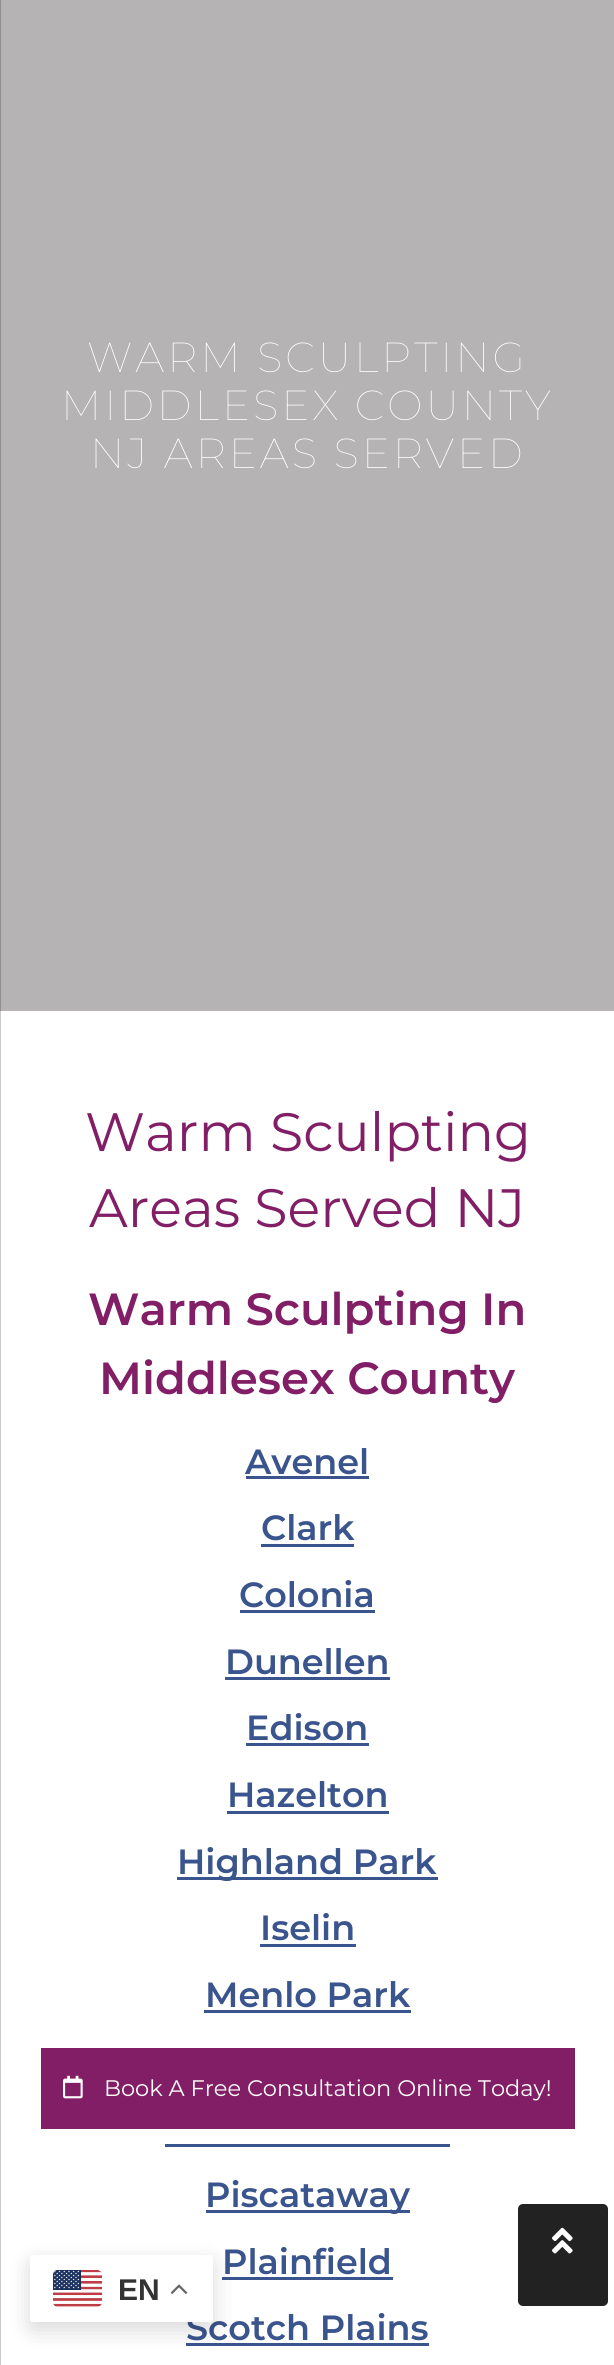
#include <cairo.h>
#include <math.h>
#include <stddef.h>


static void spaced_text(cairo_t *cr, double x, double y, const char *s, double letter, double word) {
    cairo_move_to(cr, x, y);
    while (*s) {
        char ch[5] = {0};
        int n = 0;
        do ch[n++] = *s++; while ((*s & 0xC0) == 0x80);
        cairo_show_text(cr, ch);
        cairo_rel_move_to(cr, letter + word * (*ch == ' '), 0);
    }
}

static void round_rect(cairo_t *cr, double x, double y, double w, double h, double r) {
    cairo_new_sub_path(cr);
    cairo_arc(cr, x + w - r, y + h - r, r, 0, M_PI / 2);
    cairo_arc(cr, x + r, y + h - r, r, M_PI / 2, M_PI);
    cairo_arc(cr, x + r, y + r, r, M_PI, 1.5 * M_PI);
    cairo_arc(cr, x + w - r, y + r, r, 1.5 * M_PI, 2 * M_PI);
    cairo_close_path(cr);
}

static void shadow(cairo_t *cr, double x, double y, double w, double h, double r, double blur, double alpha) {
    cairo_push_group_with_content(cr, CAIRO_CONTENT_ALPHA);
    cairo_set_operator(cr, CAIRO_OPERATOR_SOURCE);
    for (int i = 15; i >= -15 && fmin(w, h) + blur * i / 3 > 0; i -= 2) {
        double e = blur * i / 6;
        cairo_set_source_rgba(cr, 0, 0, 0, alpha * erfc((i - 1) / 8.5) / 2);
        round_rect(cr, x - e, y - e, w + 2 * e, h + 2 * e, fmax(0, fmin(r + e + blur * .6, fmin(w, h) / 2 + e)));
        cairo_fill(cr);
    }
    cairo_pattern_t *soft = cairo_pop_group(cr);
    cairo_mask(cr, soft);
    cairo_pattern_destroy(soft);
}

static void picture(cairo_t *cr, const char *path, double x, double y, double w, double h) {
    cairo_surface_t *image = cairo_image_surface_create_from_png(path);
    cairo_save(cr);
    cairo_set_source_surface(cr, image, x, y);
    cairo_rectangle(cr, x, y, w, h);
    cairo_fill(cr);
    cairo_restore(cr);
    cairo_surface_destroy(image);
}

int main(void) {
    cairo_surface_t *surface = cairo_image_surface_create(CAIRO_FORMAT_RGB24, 614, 2365);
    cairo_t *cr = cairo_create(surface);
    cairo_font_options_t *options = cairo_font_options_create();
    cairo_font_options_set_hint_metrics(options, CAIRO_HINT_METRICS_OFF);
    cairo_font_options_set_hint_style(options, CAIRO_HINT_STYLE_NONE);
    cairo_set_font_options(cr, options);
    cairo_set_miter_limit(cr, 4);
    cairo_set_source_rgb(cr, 1, 1, 1);
    cairo_paint(cr);
    cairo_set_source_rgb(cr, 0.8, 0.8, 0.8);
    cairo_rectangle(cr, 0, 1011, 1, 1354);
    cairo_fill(cr);
    cairo_set_source_rgb(cr, 0.71, 0.702, 0.702);
    cairo_rectangle(cr, 1, 0, 613, 1011);
    cairo_fill(cr);
    cairo_set_source_rgb(cr, 0.569, 0.561, 0.561);
    cairo_rectangle(cr, 0, 0, 1, 1011);
    cairo_fill(cr);
    cairo_select_font_face(cr, "Montserrat Thin", CAIRO_FONT_SLANT_NORMAL, CAIRO_FONT_WEIGHT_NORMAL);
    cairo_set_font_size(cr, 42);
    cairo_set_source_rgb(cr, 1, 1, 1);
    spaced_text(cr, 87, 372, "WARM SCULPTING", 3, 0);
    spaced_text(cr, 61, 420, "MIDDLESEX COUNTY", 3, 0);
    spaced_text(cr, 90, 468, "NJ AREAS SERVED", 3, 0);
    cairo_select_font_face(cr, "Montserrat", CAIRO_FONT_SLANT_NORMAL, CAIRO_FONT_WEIGHT_NORMAL);
    cairo_set_font_size(cr, 54);
    cairo_set_source_rgb(cr, 0.51, 0.118, 0.4);
    cairo_move_to(cr, 85, 1151);
    cairo_show_text(cr, "Warm Sculpting");
    cairo_move_to(cr, 89, 1227);
    cairo_show_text(cr, "Areas Served NJ");
    cairo_select_font_face(cr, "Montserrat SemiBold", CAIRO_FONT_SLANT_NORMAL, CAIRO_FONT_WEIGHT_NORMAL);
    cairo_set_font_size(cr, 45);
    cairo_move_to(cr, 88, 1325);
    cairo_show_text(cr, "Warm Sculpting In");
    cairo_move_to(cr, 99, 1394);
    cairo_show_text(cr, "Middlesex County");
    cairo_set_font_size(cr, 35);
    cairo_set_source_rgb(cr, 0.227, 0.329, 0.557);
    cairo_move_to(cr, 245, 1474);
    cairo_show_text(cr, "Avenel");
    cairo_rectangle(cr, 246, 1476, 123, 3);
    cairo_fill(cr);
    cairo_move_to(cr, 261, 1540);
    cairo_show_text(cr, "Clark");
    cairo_rectangle(cr, 261, 1544, 93, 3);
    cairo_fill(cr);
    cairo_move_to(cr, 239, 1607);
    cairo_show_text(cr, "Colonia");
    cairo_rectangle(cr, 240, 1610, 135, 3);
    cairo_fill(cr);
    cairo_move_to(cr, 225, 1674);
    cairo_show_text(cr, "Dunellen");
    cairo_rectangle(cr, 225, 1677, 165, 3);
    cairo_fill(cr);
    cairo_move_to(cr, 246, 1740);
    cairo_show_text(cr, "Edison");
    cairo_rectangle(cr, 246, 1743, 123, 3);
    cairo_fill(cr);
    cairo_move_to(cr, 227, 1807);
    cairo_show_text(cr, "Hazelton");
    cairo_rectangle(cr, 227, 1811, 162, 3);
    cairo_fill(cr);
    cairo_rectangle(cr, 177, 1877, 261, 3);
    cairo_fill(cr);
    cairo_move_to(cr, 177, 1874);
    cairo_show_text(cr, "Highland Park");
    cairo_move_to(cr, 260, 1940);
    cairo_show_text(cr, "Iselin");
    cairo_rectangle(cr, 260, 1944, 96, 3);
    cairo_fill(cr);
    cairo_move_to(cr, 205, 2007);
    cairo_show_text(cr, "Menlo Park");
    cairo_rectangle(cr, 204, 2010, 207, 3);
    cairo_fill(cr);
    cairo_rectangle(cr, 165, 2144, 285, 3);
    cairo_fill(cr);
    cairo_rectangle(cr, 206, 2210, 204, 3);
    cairo_fill(cr);
    cairo_move_to(cr, 205, 2207);
    cairo_show_text(cr, "Piscataway");
    cairo_move_to(cr, 222, 2274);
    cairo_show_text(cr, "Plainfield");
    cairo_rectangle(cr, 222, 2277, 171, 3);
    cairo_fill(cr);
    cairo_move_to(cr, 186, 2340);
    cairo_show_text(cr, "Scotch Plains");
    cairo_rectangle(cr, 186, 2343, 243, 3);
    cairo_fill(cr);
    cairo_set_source_rgb(cr, 0.51, 0.118, 0.4);
    cairo_rectangle(cr, 41, 2048, 534, 81);
    cairo_fill(cr);
    picture(cr, "img1.png", 63, 2075, 20, 24);
    cairo_select_font_face(cr, "Montserrat", CAIRO_FONT_SLANT_NORMAL, CAIRO_FONT_WEIGHT_NORMAL);
    cairo_set_font_size(cr, 22.5);
    cairo_set_source_rgb(cr, 1, 1, 1);
    cairo_move_to(cr, 104, 2096);
    cairo_show_text(cr, "Book A Free Consultation Online Today!");
    cairo_set_source_rgb(cr, 0, 0, 0);
    shadow(cr, 30, 2262, 183, 68, 3, 11, 0.15);
    cairo_set_source_rgb(cr, 1, 1, 1);
    round_rect(cr, 30, 2255, 183, 67, 3);
    cairo_fill(cr);
    picture(cr, "img2.png", 53, 2270, 49, 37);
    cairo_select_font_face(cr, "Liberation Sans", CAIRO_FONT_SLANT_NORMAL, CAIRO_FONT_WEIGHT_BOLD);
    cairo_set_font_size(cr, 30);
    cairo_set_source_rgb(cr, 0.2, 0.2, 0.2);
    cairo_move_to(cr, 118, 2300);
    cairo_show_text(cr, "EN");
    picture(cr, "img3.png", 171, 2284, 17, 10);
    cairo_set_source_rgb(cr, 0.133, 0.133, 0.133);
    round_rect(cr, 518, 2204, 90, 102, 5);
    cairo_fill(cr);
    picture(cr, "img4.png", 552, 2227, 21, 27);
    cairo_surface_write_to_png(surface, "page.png");
    cairo_font_options_destroy(options);
    cairo_destroy(cr);
    cairo_surface_destroy(surface);
    return 0;
}
